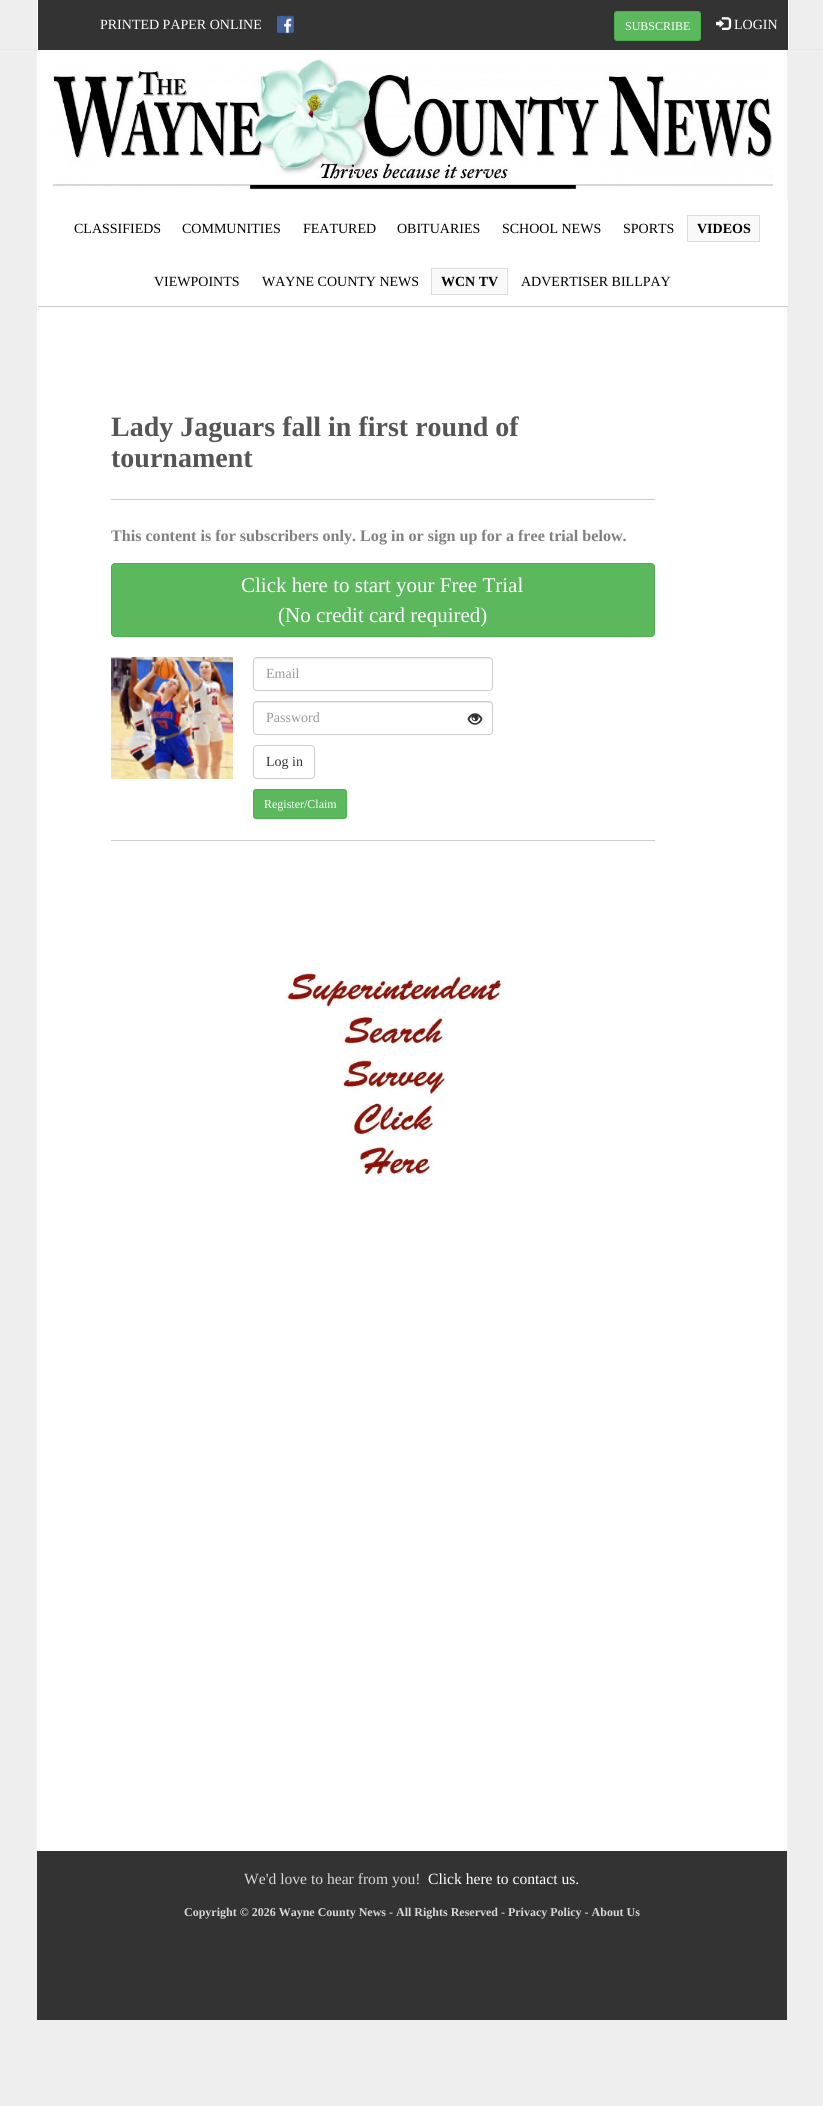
#include <cairo.h>
#include <math.h>
#include <stddef.h>


static void round_rect(cairo_t *cr, double x, double y, double w, double h, double r) {
    cairo_new_sub_path(cr);
    cairo_arc(cr, x + w - r, y + h - r, r, 0, M_PI / 2);
    cairo_arc(cr, x + r, y + h - r, r, M_PI / 2, M_PI);
    cairo_arc(cr, x + r, y + r, r, M_PI, 1.5 * M_PI);
    cairo_arc(cr, x + w - r, y + r, r, 1.5 * M_PI, 2 * M_PI);
    cairo_close_path(cr);
}

static void picture(cairo_t *cr, const char *path, double x, double y, double w, double h) {
    cairo_surface_t *image = cairo_image_surface_create_from_png(path);
    cairo_save(cr);
    cairo_set_source_surface(cr, image, x, y);
    cairo_rectangle(cr, x, y, w, h);
    cairo_fill(cr);
    cairo_restore(cr);
    cairo_surface_destroy(image);
}

int main(void) {
    cairo_surface_t *surface = cairo_image_surface_create(CAIRO_FORMAT_RGB24, 823, 2106);
    cairo_t *cr = cairo_create(surface);
    cairo_font_options_t *options = cairo_font_options_create();
    cairo_font_options_set_hint_metrics(options, CAIRO_HINT_METRICS_OFF);
    cairo_font_options_set_hint_style(options, CAIRO_HINT_STYLE_NONE);
    cairo_set_font_options(cr, options);
    cairo_set_miter_limit(cr, 4);
    cairo_set_source_rgb(cr, 0.933, 0.933, 0.933);
    cairo_paint(cr);
    cairo_set_source_rgb(cr, 0.996, 0.996, 0.996);
    cairo_rectangle(cr, 787, 200, 1, 106);
    cairo_fill(cr);
    cairo_set_source_rgb(cr, 1, 1, 1);
    cairo_rectangle(cr, 786, 50, 1, 1801);
    cairo_fill(cr);
    cairo_rectangle(cr, 37, 50, 749, 1801);
    cairo_fill(cr);
    cairo_set_source_rgb(cr, 0.906, 0.906, 0.906);
    cairo_rectangle(cr, 0, 49, 823, 1);
    cairo_fill(cr);
    cairo_set_source_rgb(cr, 0.2, 0.2, 0.2);
    cairo_rectangle(cr, 38, 0, 750, 50);
    cairo_fill(cr);
    cairo_set_source_rgb(cr, 1, 1, 1);
    cairo_rectangle(cr, 788, 0, 1, 50);
    cairo_fill(cr);
    cairo_rectangle(cr, 37, 0, 1, 50);
    cairo_fill(cr);
    cairo_select_font_face(cr, "Liberation Serif", CAIRO_FONT_SLANT_NORMAL, CAIRO_FONT_WEIGHT_NORMAL);
    cairo_set_font_size(cr, 14);
    cairo_move_to(cr, 100, 29);
    cairo_show_text(cr, "PRINTED PAPER ONLINE");
    picture(cr, "img1.png", 277, 15, 17, 19);
    cairo_set_source_rgb(cr, 0.361, 0.722, 0.361);
    round_rect(cr, 614.5, 11.5, 86, 29, 2.5);
    cairo_fill_preserve(cr);
    cairo_set_source_rgb(cr, 0.298, 0.682, 0.298);
    cairo_set_line_width(cr, 1);
    cairo_stroke(cr);
    cairo_set_font_size(cr, 12);
    cairo_set_source_rgb(cr, 1, 1, 1);
    cairo_move_to(cr, 625, 30);
    cairo_show_text(cr, "SUBSCRIBE");
    picture(cr, "img2.png", 716, 17, 16, 13);
    cairo_set_font_size(cr, 14);
    cairo_move_to(cr, 734, 29);
    cairo_show_text(cr, "LOGIN");
    picture(cr, "img3.png", 53, 59, 720, 131);
    cairo_set_source_rgb(cr, 0.8, 0.8, 0.8);
    cairo_rectangle(cr, 38, 306, 750, 1);
    cairo_fill(cr);
    cairo_set_source_rgb(cr, 0, 0, 0);
    cairo_move_to(cr, 74, 233);
    cairo_show_text(cr, "CLASSIFIEDS");
    cairo_move_to(cr, 182, 233);
    cairo_show_text(cr, "COMMUNITIES");
    cairo_move_to(cr, 303, 233);
    cairo_show_text(cr, "FEATURED");
    cairo_move_to(cr, 397, 233);
    cairo_show_text(cr, "OBITUARIES");
    cairo_move_to(cr, 502, 233);
    cairo_show_text(cr, "SCHOOL NEWS");
    cairo_move_to(cr, 623, 233);
    cairo_show_text(cr, "SPORTS");
    cairo_set_source_rgb(cr, 0.973, 0.973, 0.973);
    cairo_rectangle(cr, 687.5, 215.5, 72, 26);
    cairo_fill_preserve(cr);
    cairo_set_source_rgb(cr, 0.867, 0.867, 0.867);
    cairo_stroke(cr);
    cairo_select_font_face(cr, "Liberation Serif", CAIRO_FONT_SLANT_NORMAL, CAIRO_FONT_WEIGHT_BOLD);
    cairo_set_source_rgb(cr, 0, 0, 0);
    cairo_move_to(cr, 697, 233);
    cairo_show_text(cr, "VIDEOS");
    cairo_select_font_face(cr, "Liberation Serif", CAIRO_FONT_SLANT_NORMAL, CAIRO_FONT_WEIGHT_NORMAL);
    cairo_move_to(cr, 154, 286);
    cairo_show_text(cr, "VIEWPOINTS");
    cairo_move_to(cr, 262, 286);
    cairo_show_text(cr, "WAYNE COUNTY NEWS");
    cairo_set_source_rgb(cr, 0.973, 0.973, 0.973);
    cairo_rectangle(cr, 431.5, 268.5, 76, 26);
    cairo_fill_preserve(cr);
    cairo_set_source_rgb(cr, 0.867, 0.867, 0.867);
    cairo_stroke(cr);
    cairo_select_font_face(cr, "Liberation Serif", CAIRO_FONT_SLANT_NORMAL, CAIRO_FONT_WEIGHT_BOLD);
    cairo_set_source_rgb(cr, 0, 0, 0);
    cairo_move_to(cr, 441, 286);
    cairo_show_text(cr, "WCN TV");
    cairo_select_font_face(cr, "Liberation Serif", CAIRO_FONT_SLANT_NORMAL, CAIRO_FONT_WEIGHT_NORMAL);
    cairo_move_to(cr, 521, 286);
    cairo_show_text(cr, "ADVERTISER BILLPAY");
    cairo_select_font_face(cr, "Liberation Serif", CAIRO_FONT_SLANT_NORMAL, CAIRO_FONT_WEIGHT_BOLD);
    cairo_set_font_size(cr, 28);
    cairo_set_source_rgb(cr, 0.333, 0.333, 0.333);
    cairo_move_to(cr, 111, 436);
    cairo_show_text(cr, "Lady Jaguars fall in first round of");
    cairo_move_to(cr, 111, 467);
    cairo_show_text(cr, "tournament");
    cairo_set_source_rgb(cr, 0.8, 0.8, 0.8);
    cairo_rectangle(cr, 111, 499, 544, 1);
    cairo_fill(cr);
    cairo_set_font_size(cr, 16.1);
    cairo_set_source_rgb(cr, 0.502, 0.502, 0.502);
    cairo_move_to(cr, 111, 541);
    cairo_show_text(cr, "This content is for subscribers only. Log in or sign up for a free trial below.");
    cairo_set_source_rgb(cr, 0.361, 0.722, 0.361);
    round_rect(cr, 111.5, 563.5, 543, 73, 3.5);
    cairo_fill_preserve(cr);
    cairo_set_source_rgb(cr, 0.298, 0.682, 0.298);
    cairo_stroke(cr);
    cairo_select_font_face(cr, "Liberation Serif", CAIRO_FONT_SLANT_NORMAL, CAIRO_FONT_WEIGHT_NORMAL);
    cairo_set_font_size(cr, 21);
    cairo_set_source_rgb(cr, 1, 1, 1);
    cairo_move_to(cr, 241, 592);
    cairo_show_text(cr, "Click here to start your Free Trial");
    cairo_move_to(cr, 278, 622);
    cairo_show_text(cr, "(No credit card required)");
    picture(cr, "img4.png", 111, 657, 122, 122);
    cairo_set_source_rgb(cr, 0.925, 0.925, 0.925);
    cairo_new_path(cr);
    cairo_move_to(cr, 257, 659);
    cairo_line_to(cr, 490, 659);
    cairo_line_to(cr, 492, 660);
    cairo_line_to(cr, 492, 662);
    cairo_curve_to(cr, 492, 660, 491, 658, 489, 658);
    cairo_line_to(cr, 257, 658);
    cairo_curve_to(cr, 255, 658, 254, 660, 254, 662);
    cairo_curve_to(cr, 254, 660, 255, 659, 257, 659);
    cairo_close_path(cr);
    cairo_fill(cr);
    round_rect(cr, 253.5, 657.5, 239, 33, 3.5);
    cairo_set_source_rgb(cr, 0.8, 0.8, 0.8);
    cairo_stroke(cr);
    cairo_set_font_size(cr, 14);
    cairo_set_source_rgb(cr, 0.6, 0.6, 0.6);
    cairo_move_to(cr, 266, 678);
    cairo_show_text(cr, "Email");
    cairo_set_source_rgb(cr, 0.925, 0.925, 0.925);
    cairo_new_path(cr);
    cairo_move_to(cr, 257, 703);
    cairo_line_to(cr, 490, 703);
    cairo_line_to(cr, 492, 704);
    cairo_line_to(cr, 492, 706);
    cairo_curve_to(cr, 492, 704, 491, 702, 489, 702);
    cairo_line_to(cr, 257, 702);
    cairo_curve_to(cr, 255, 702, 254, 704, 254, 706);
    cairo_curve_to(cr, 254, 704, 255, 703, 257, 703);
    cairo_close_path(cr);
    cairo_fill(cr);
    round_rect(cr, 253.5, 701.5, 239, 33, 3.5);
    cairo_set_source_rgb(cr, 0.8, 0.8, 0.8);
    cairo_stroke(cr);
    cairo_set_source_rgb(cr, 0.6, 0.6, 0.6);
    cairo_move_to(cr, 266, 722);
    cairo_show_text(cr, "Password");
    picture(cr, "img5.png", 467, 713, 16, 12);
    round_rect(cr, 253.5, 745.5, 61, 33, 3.5);
    cairo_set_source_rgb(cr, 0.8, 0.8, 0.8);
    cairo_stroke(cr);
    cairo_set_source_rgb(cr, 0.2, 0.2, 0.2);
    cairo_move_to(cr, 266, 766);
    cairo_show_text(cr, "Log in");
    cairo_set_source_rgb(cr, 0.361, 0.722, 0.361);
    round_rect(cr, 253.5, 789.5, 93, 29, 2.5);
    cairo_fill_preserve(cr);
    cairo_set_source_rgb(cr, 0.298, 0.682, 0.298);
    cairo_stroke(cr);
    cairo_set_font_size(cr, 12);
    cairo_set_source_rgb(cr, 1, 1, 1);
    cairo_move_to(cr, 264, 808);
    cairo_show_text(cr, "Register/Claim");
    cairo_set_source_rgb(cr, 0.8, 0.8, 0.8);
    cairo_rectangle(cr, 111, 840, 544, 1);
    cairo_fill(cr);
    picture(cr, "img6.png", 284, 972, 222, 205);
    cairo_set_source_rgb(cr, 0.2, 0.2, 0.2);
    cairo_rectangle(cr, 37, 1851, 750, 169);
    cairo_fill(cr);
    cairo_set_font_size(cr, 15.6);
    cairo_set_source_rgb(cr, 0.843, 0.843, 0.843);
    cairo_move_to(cr, 244, 1884);
    cairo_show_text(cr, "We'd love to hear from you!");
    cairo_set_source_rgb(cr, 1, 1, 1);
    cairo_move_to(cr, 428, 1884);
    cairo_show_text(cr, "Click here to contact us.");
    cairo_select_font_face(cr, "Liberation Serif", CAIRO_FONT_SLANT_NORMAL, CAIRO_FONT_WEIGHT_BOLD);
    cairo_set_font_size(cr, 12);
    cairo_set_source_rgb(cr, 0.843, 0.843, 0.843);
    cairo_move_to(cr, 184, 1916);
    cairo_show_text(cr, "Copyright © 2026 Wayne County News - All Rights Reserved - Privacy Policy - About Us");
    cairo_surface_write_to_png(surface, "page.png");
    cairo_font_options_destroy(options);
    cairo_destroy(cr);
    cairo_surface_destroy(surface);
    return 0;
}
